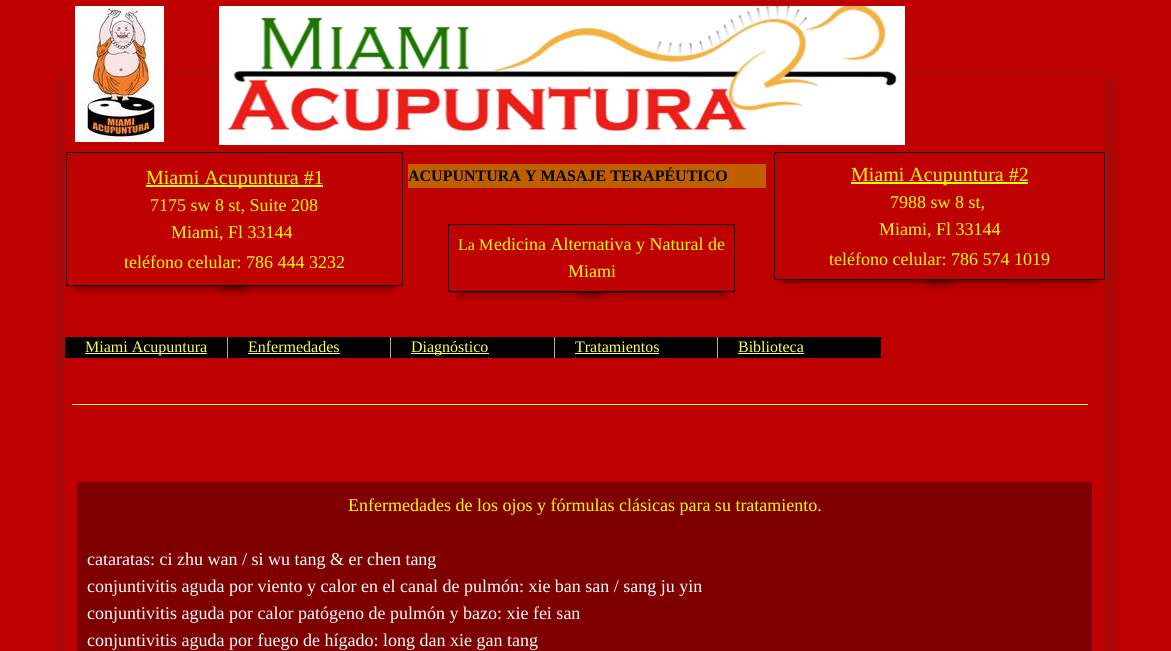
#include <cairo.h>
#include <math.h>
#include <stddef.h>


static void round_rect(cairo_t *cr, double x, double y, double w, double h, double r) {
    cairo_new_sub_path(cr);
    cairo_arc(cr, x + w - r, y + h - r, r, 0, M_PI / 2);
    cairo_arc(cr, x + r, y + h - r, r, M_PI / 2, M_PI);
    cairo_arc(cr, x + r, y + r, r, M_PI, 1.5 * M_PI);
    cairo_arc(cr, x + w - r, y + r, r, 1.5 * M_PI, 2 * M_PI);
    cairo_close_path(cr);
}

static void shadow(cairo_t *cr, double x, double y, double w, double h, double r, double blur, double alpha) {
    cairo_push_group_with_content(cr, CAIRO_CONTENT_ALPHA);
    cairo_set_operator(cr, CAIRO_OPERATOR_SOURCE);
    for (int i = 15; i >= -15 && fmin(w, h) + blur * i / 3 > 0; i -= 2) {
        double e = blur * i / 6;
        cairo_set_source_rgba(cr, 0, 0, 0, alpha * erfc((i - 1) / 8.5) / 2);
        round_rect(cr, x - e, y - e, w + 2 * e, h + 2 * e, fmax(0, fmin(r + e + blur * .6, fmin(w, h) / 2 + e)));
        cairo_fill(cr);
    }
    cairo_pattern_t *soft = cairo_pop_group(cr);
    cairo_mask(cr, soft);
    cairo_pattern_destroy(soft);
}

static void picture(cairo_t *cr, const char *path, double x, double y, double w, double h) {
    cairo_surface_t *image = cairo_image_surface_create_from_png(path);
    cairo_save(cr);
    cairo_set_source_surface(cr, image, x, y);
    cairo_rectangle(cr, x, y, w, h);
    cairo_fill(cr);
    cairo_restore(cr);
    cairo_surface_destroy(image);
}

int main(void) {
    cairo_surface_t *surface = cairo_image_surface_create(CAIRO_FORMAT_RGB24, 1171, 651);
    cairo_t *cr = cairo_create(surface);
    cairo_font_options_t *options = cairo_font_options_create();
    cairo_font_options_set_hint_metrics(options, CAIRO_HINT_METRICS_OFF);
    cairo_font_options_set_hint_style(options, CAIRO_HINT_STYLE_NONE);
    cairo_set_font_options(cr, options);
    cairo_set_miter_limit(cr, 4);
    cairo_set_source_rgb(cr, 0.749, 0, 0);
    cairo_paint(cr);
    cairo_save(cr);
    cairo_set_fill_rule(cr, CAIRO_FILL_RULE_EVEN_ODD);
    cairo_new_path(cr);
    cairo_move_to(cr, 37, 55);
    cairo_line_to(cr, 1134, 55);
    cairo_line_to(cr, 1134, 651);
    cairo_line_to(cr, 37, 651);
    cairo_close_path(cr);
    cairo_move_to(cr, 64, 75);
    cairo_line_to(cr, 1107, 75);
    cairo_line_to(cr, 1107, 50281);
    cairo_line_to(cr, 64, 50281);
    cairo_close_path(cr);
    cairo_clip(cr);
    cairo_set_source_rgb(cr, 0.196, 0.196, 0.196);
    shadow(cr, 64, 82, 1043, 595, 0, 8.5, 0.5);
    cairo_restore(cr);
    picture(cr, "img1.png", 75, 6, 89, 136);
    picture(cr, "img2.png", 219, 6, 686, 139);
    cairo_set_source_rgb(cr, 0, 0, 0);
    shadow(cr, 76, 259, 169, 27, 0, 5, 0.7);
    shadow(cr, 224, 259, 169, 27, 0, 5, 0.7);
    cairo_set_source_rgb(cr, 0.749, 0, 0);
    cairo_rectangle(cr, 67, 247, 335, 38);
    cairo_fill(cr);
    cairo_rectangle(cr, 66.5, 152.5, 336, 133);
    cairo_set_source_rgb(cr, 0, 0, 0);
    cairo_set_line_width(cr, 1);
    cairo_stroke(cr);
    cairo_set_source_rgb(cr, 1, 1, 0);
    cairo_rectangle(cr, 146, 185, 177, 2);
    cairo_fill(cr);
    cairo_select_font_face(cr, "Liberation Serif", CAIRO_FONT_SLANT_NORMAL, CAIRO_FONT_WEIGHT_NORMAL);
    cairo_set_font_size(cr, 20);
    cairo_move_to(cr, 146, 184);
    cairo_show_text(cr, "Miami Acupuntura #1");
    cairo_set_font_size(cr, 18);
    cairo_move_to(cr, 150, 211);
    cairo_show_text(cr, "7175 sw 8 st, Suite 208");
    cairo_move_to(cr, 171, 238);
    cairo_show_text(cr, "Miami, Fl 33144");
    cairo_move_to(cr, 124, 268);
    cairo_show_text(cr, "teléfono celular: 786 444 3232");
    cairo_set_source_rgb(cr, 0.749, 0.373, 0);
    cairo_rectangle(cr, 408, 164, 358, 24);
    cairo_fill(cr);
    cairo_select_font_face(cr, "Liberation Serif", CAIRO_FONT_SLANT_NORMAL, CAIRO_FONT_WEIGHT_BOLD);
    cairo_set_font_size(cr, 16);
    cairo_set_source_rgb(cr, 0, 0, 0);
    cairo_move_to(cr, 408, 181);
    cairo_show_text(cr, "ACUPUNTURA Y MASAJE TERAPÉUTICO");
    cairo_set_source_rgb(cr, 0, 0, 0);
    shadow(cr, 784, 254, 165, 26, 0, 5, 0.7);
    shadow(cr, 930, 254, 165, 26, 0, 5, 0.7);
    cairo_set_source_rgb(cr, 0.749, 0, 0);
    cairo_rectangle(cr, 775, 242, 329, 37);
    cairo_fill(cr);
    cairo_rectangle(cr, 774.5, 152.5, 330, 127);
    cairo_set_source_rgb(cr, 0, 0, 0);
    cairo_stroke(cr);
    cairo_set_source_rgb(cr, 1, 1, 0);
    cairo_rectangle(cr, 851, 182, 177, 2);
    cairo_fill(cr);
    cairo_select_font_face(cr, "Liberation Serif", CAIRO_FONT_SLANT_NORMAL, CAIRO_FONT_WEIGHT_NORMAL);
    cairo_set_font_size(cr, 20);
    cairo_move_to(cr, 851, 181);
    cairo_show_text(cr, "Miami Acupuntura #2");
    cairo_set_font_size(cr, 18);
    cairo_move_to(cr, 890, 208);
    cairo_show_text(cr, "7988 sw 8 st,");
    cairo_move_to(cr, 879, 235);
    cairo_show_text(cr, "Miami, Fl 33144");
    cairo_move_to(cr, 829, 265);
    cairo_show_text(cr, "teléfono celular: 786 574 1019");
    cairo_set_source_rgb(cr, 0, 0, 0);
    shadow(cr, 458, 278, 143, 14, 0, 5, 0.7);
    shadow(cr, 582, 278, 143, 14, 0, 5, 0.7);
    cairo_set_source_rgb(cr, 0.749, 0, 0);
    cairo_rectangle(cr, 449, 266, 285, 25);
    cairo_fill(cr);
    cairo_rectangle(cr, 448.5, 224.5, 286, 67);
    cairo_set_source_rgb(cr, 0, 0, 0);
    cairo_stroke(cr);
    cairo_set_font_size(cr, 16);
    cairo_set_source_rgb(cr, 1, 1, 0);
    cairo_move_to(cr, 458, 250);
    cairo_show_text(cr, "La M");
    cairo_set_font_size(cr, 18);
    cairo_move_to(cr, 494, 250);
    cairo_show_text(cr, "edicina Alternativa y Natural de");
    cairo_move_to(cr, 568, 277);
    cairo_show_text(cr, "Miami");
    cairo_set_source_rgb(cr, 0, 0, 0);
    cairo_rectangle(cr, 65, 337, 162, 21);
    cairo_fill(cr);
    cairo_set_source_rgb(cr, 0.682, 0.682, 0.682);
    cairo_rectangle(cr, 227, 337, 1, 21);
    cairo_fill(cr);
    cairo_set_source_rgb(cr, 1, 1, 0.337);
    cairo_rectangle(cr, 85, 353, 122, 1);
    cairo_fill(cr);
    cairo_set_font_size(cr, 16);
    cairo_move_to(cr, 85, 352);
    cairo_show_text(cr, "Miami Acupuntura");
    cairo_set_source_rgb(cr, 0, 0, 0);
    cairo_rectangle(cr, 228, 337, 162, 21);
    cairo_fill(cr);
    cairo_set_source_rgb(cr, 0.682, 0.682, 0.682);
    cairo_rectangle(cr, 390, 337, 1, 21);
    cairo_fill(cr);
    cairo_set_source_rgb(cr, 1, 1, 0.337);
    cairo_move_to(cr, 248, 352);
    cairo_show_text(cr, "Enfermedades");
    cairo_rectangle(cr, 248, 353, 92, 1);
    cairo_fill(cr);
    cairo_set_source_rgb(cr, 0, 0, 0);
    cairo_rectangle(cr, 391, 337, 163, 21);
    cairo_fill(cr);
    cairo_set_source_rgb(cr, 0.682, 0.682, 0.682);
    cairo_rectangle(cr, 554, 337, 1, 21);
    cairo_fill(cr);
    cairo_set_source_rgb(cr, 1, 1, 0.337);
    cairo_rectangle(cr, 411, 353, 78, 1);
    cairo_fill(cr);
    cairo_move_to(cr, 411, 352);
    cairo_show_text(cr, "Diagnóstico");
    cairo_set_source_rgb(cr, 0, 0, 0);
    cairo_rectangle(cr, 555, 337, 162, 21);
    cairo_fill(cr);
    cairo_set_source_rgb(cr, 0.682, 0.682, 0.682);
    cairo_rectangle(cr, 717, 337, 1, 21);
    cairo_fill(cr);
    cairo_set_source_rgb(cr, 1, 1, 0.337);
    cairo_move_to(cr, 575, 352);
    cairo_show_text(cr, "Tratamientos");
    cairo_rectangle(cr, 575, 353, 84, 1);
    cairo_fill(cr);
    cairo_set_source_rgb(cr, 0, 0, 0);
    cairo_rectangle(cr, 718, 337, 163, 21);
    cairo_fill(cr);
    cairo_set_source_rgb(cr, 1, 1, 0.337);
    cairo_move_to(cr, 738, 352);
    cairo_show_text(cr, "Biblioteca");
    cairo_rectangle(cr, 738, 353, 66, 1);
    cairo_fill(cr);
    cairo_set_source_rgb(cr, 1, 1, 0);
    cairo_rectangle(cr, 72, 404, 1016, 1);
    cairo_fill(cr);
    cairo_set_source_rgb(cr, 0.498, 0, 0);
    cairo_rectangle(cr, 77, 482, 1015, 169);
    cairo_fill(cr);
    cairo_set_font_size(cr, 18);
    cairo_set_source_rgb(cr, 1, 1, 0);
    cairo_move_to(cr, 348, 511);
    cairo_show_text(cr, "Enfermedades de los ojos y fórmulas clásicas para su tratamiento.");
    cairo_set_source_rgb(cr, 1, 1, 1);
    cairo_move_to(cr, 87, 565);
    cairo_show_text(cr, "cataratas: ci zhu wan / si wu tang & er chen tang");
    cairo_move_to(cr, 87, 592);
    cairo_show_text(cr, "conjuntivitis aguda por viento y calor en el canal de pulmón: xie ban san / sang ju yin");
    cairo_move_to(cr, 87, 619);
    cairo_show_text(cr, "conjuntivitis aguda por calor patógeno de pulmón y bazo: xie fei san");
    cairo_move_to(cr, 87, 646);
    cairo_show_text(cr, "conjuntivitis aguda por fuego de hígado: long dan xie gan tang");
    cairo_surface_write_to_png(surface, "page.png");
    cairo_font_options_destroy(options);
    cairo_destroy(cr);
    cairo_surface_destroy(surface);
    return 0;
}
